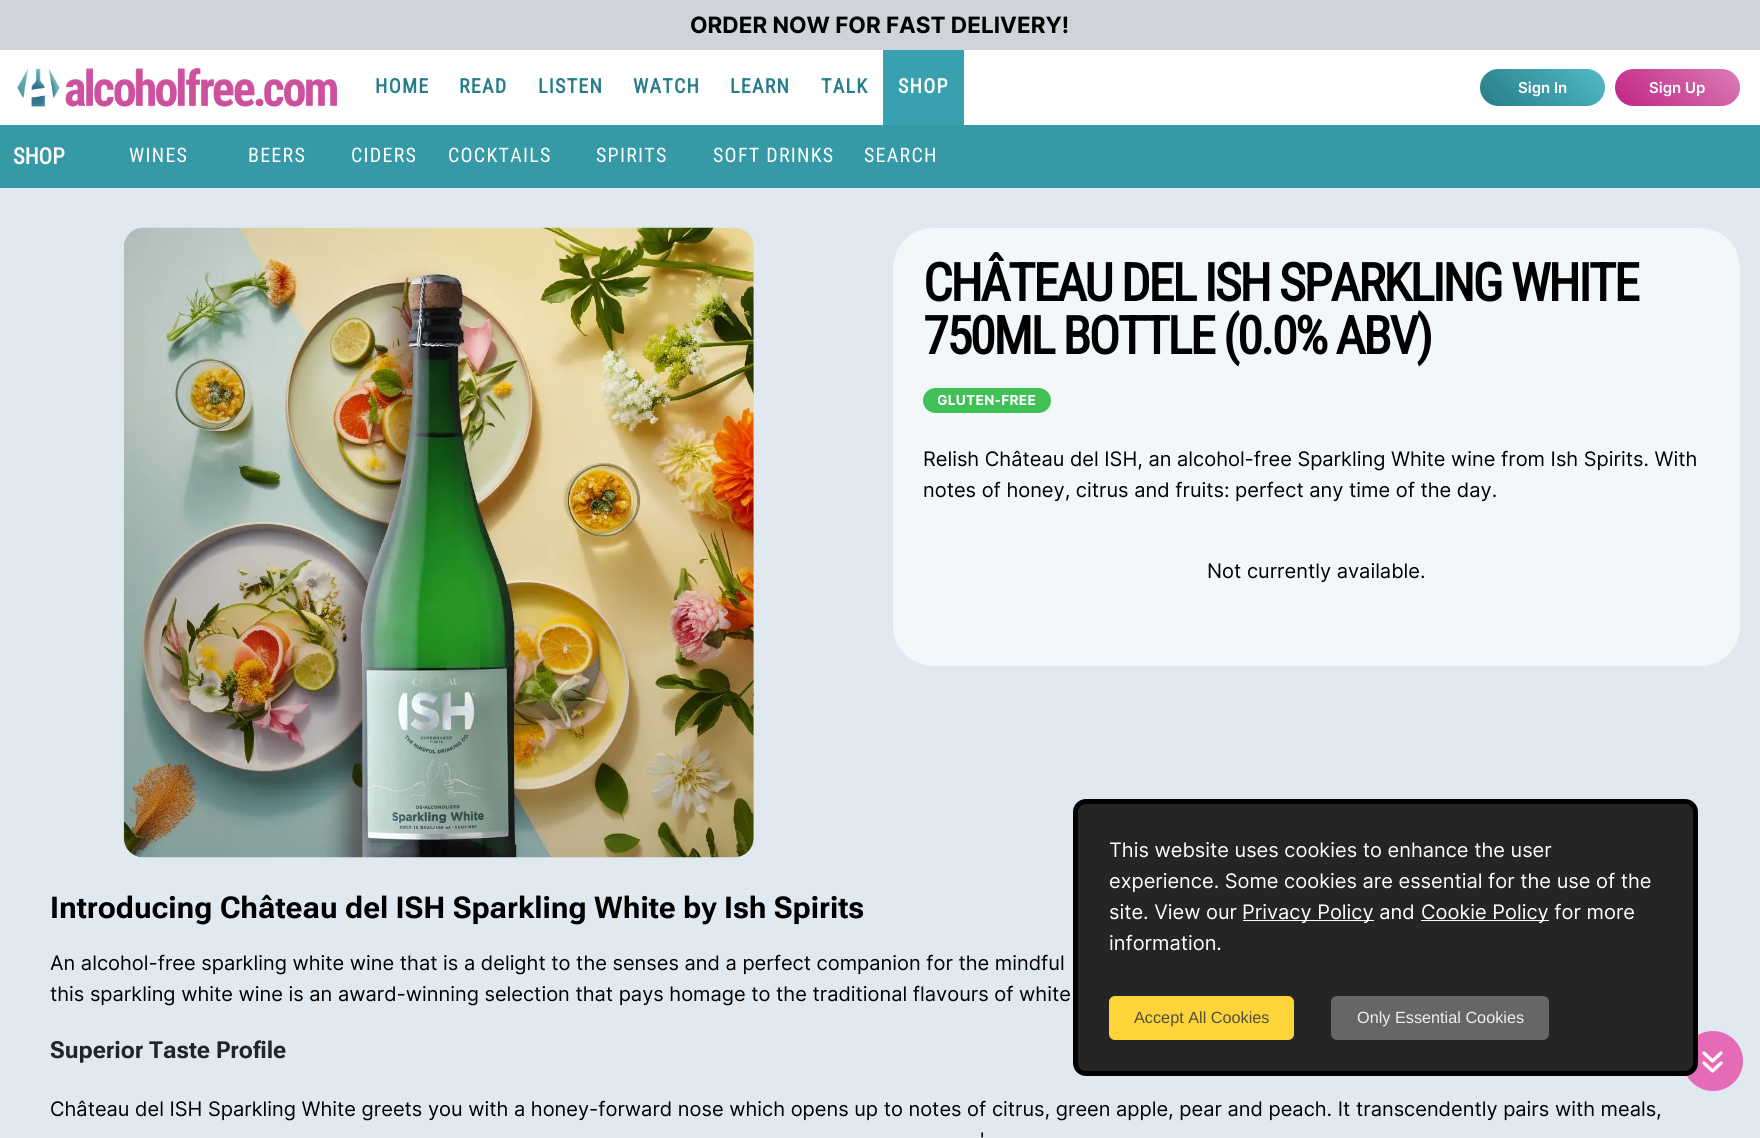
#include <cairo.h>
#include <math.h>
#include <stddef.h>


static void spaced_text(cairo_t *cr, double x, double y, const char *s, double letter, double word) {
    cairo_move_to(cr, x, y);
    while (*s) {
        char ch[5] = {0};
        int n = 0;
        do ch[n++] = *s++; while ((*s & 0xC0) == 0x80);
        cairo_show_text(cr, ch);
        cairo_rel_move_to(cr, letter + word * (*ch == ' '), 0);
    }
}

static void round_rect(cairo_t *cr, double x, double y, double w, double h, double r) {
    cairo_new_sub_path(cr);
    cairo_arc(cr, x + w - r, y + h - r, r, 0, M_PI / 2);
    cairo_arc(cr, x + r, y + h - r, r, M_PI / 2, M_PI);
    cairo_arc(cr, x + r, y + r, r, M_PI, 1.5 * M_PI);
    cairo_arc(cr, x + w - r, y + r, r, 1.5 * M_PI, 2 * M_PI);
    cairo_close_path(cr);
}

static void picture(cairo_t *cr, const char *path, double x, double y, double w, double h) {
    cairo_surface_t *image = cairo_image_surface_create_from_png(path);
    cairo_save(cr);
    cairo_set_source_surface(cr, image, x, y);
    cairo_rectangle(cr, x, y, w, h);
    cairo_fill(cr);
    cairo_restore(cr);
    cairo_surface_destroy(image);
}

int main(void) {
    cairo_surface_t *surface = cairo_image_surface_create(CAIRO_FORMAT_RGB24, 1760, 1138);
    cairo_t *cr = cairo_create(surface);
    cairo_font_options_t *options = cairo_font_options_create();
    cairo_font_options_set_hint_metrics(options, CAIRO_HINT_METRICS_OFF);
    cairo_font_options_set_hint_style(options, CAIRO_HINT_STYLE_NONE);
    cairo_set_font_options(cr, options);
    cairo_set_miter_limit(cr, 4);
    cairo_pattern_t *gradient;
    cairo_set_source_rgb(cr, 0.875, 0.914, 0.937);
    cairo_paint(cr);
    cairo_set_source_rgb(cr, 1, 1, 1);
    cairo_rectangle(cr, 0, 50, 1760, 75);
    cairo_fill(cr);
    cairo_set_source_rgb(cr, 0.808, 0.831, 0.855);
    cairo_rectangle(cr, 0, 0, 1760, 50);
    cairo_fill(cr);
    cairo_select_font_face(cr, "Inter", CAIRO_FONT_SLANT_NORMAL, CAIRO_FONT_WEIGHT_BOLD);
    cairo_set_font_size(cr, 22.5);
    cairo_set_source_rgb(cr, 0, 0, 0);
    cairo_move_to(cr, 690, 33);
    cairo_show_text(cr, "ORDER NOW FOR FAST DELIVERY!");
    picture(cr, "img1.png", 17, 68, 320, 39);
    cairo_select_font_face(cr, "Roboto Condensed", CAIRO_FONT_SLANT_NORMAL, CAIRO_FONT_WEIGHT_BOLD);
    cairo_set_font_size(cr, 20);
    cairo_set_source_rgb(cr, 0.153, 0.49, 0.533);
    spaced_text(cr, 375, 93, "HOME", 1.25, 0);
    spaced_text(cr, 459, 93, "READ", 1.25, 0);
    spaced_text(cr, 538, 93, "LISTEN", 1.25, 0);
    spaced_text(cr, 633, 93, "WATCH", 1.25, 0);
    spaced_text(cr, 730, 93, "LEARN", 1.25, 0);
    spaced_text(cr, 821, 93, "TALK", 1.25, 0);
    cairo_set_source_rgb(cr, 0.22, 0.627, 0.682);
    cairo_rectangle(cr, 883, 50, 81, 75);
    cairo_fill(cr);
    cairo_set_source_rgb(cr, 1, 1, 1);
    spaced_text(cr, 898, 93, "SHOP", 1.25, 0);
    gradient = cairo_pattern_create_linear(1502, 128, 1583, 47);
    cairo_pattern_add_color_stop_rgba(gradient, 0, 0.153, 0.49, 0.533, 1);
    cairo_pattern_add_color_stop_rgba(gradient, 1, 0.318, 0.729, 0.78, 1);
    cairo_set_source(cr, gradient);
    cairo_pattern_destroy(gradient);
    round_rect(cr, 1480, 69, 125, 37, 18.5);
    cairo_fill(cr);
    cairo_select_font_face(cr, "Inter SemiBold", CAIRO_FONT_SLANT_NORMAL, CAIRO_FONT_WEIGHT_NORMAL);
    cairo_set_font_size(cr, 15);
    cairo_set_source_rgb(cr, 1, 1, 1);
    cairo_move_to(cr, 1518, 93);
    cairo_show_text(cr, "Sign In");
    gradient = cairo_pattern_create_linear(1637, 128, 1718, 47);
    cairo_pattern_add_color_stop_rgba(gradient, 0, 0.757, 0.145, 0.518, 1);
    cairo_pattern_add_color_stop_rgba(gradient, 1, 0.855, 0.486, 0.71, 1);
    cairo_set_source(cr, gradient);
    cairo_pattern_destroy(gradient);
    round_rect(cr, 1615, 69, 125, 37, 18.5);
    cairo_fill(cr);
    cairo_set_source_rgb(cr, 1, 1, 1);
    cairo_move_to(cr, 1649, 93);
    cairo_show_text(cr, "Sign Up");
    cairo_set_source_rgb(cr, 0.208, 0.6, 0.651);
    cairo_rectangle(cr, 0, 125, 1760, 63);
    cairo_fill(cr);
    cairo_select_font_face(cr, "Roboto Condensed", CAIRO_FONT_SLANT_NORMAL, CAIRO_FONT_WEIGHT_BOLD);
    cairo_set_font_size(cr, 22.5);
    cairo_set_source_rgb(cr, 1, 1, 1);
    cairo_move_to(cr, 13, 164);
    cairo_show_text(cr, "SHOP");
    cairo_select_font_face(cr, "Roboto Condensed", CAIRO_FONT_SLANT_NORMAL, CAIRO_FONT_WEIGHT_NORMAL);
    cairo_set_font_size(cr, 20);
    spaced_text(cr, 129, 162, "WINES", 1.25, 0);
    spaced_text(cr, 248, 162, "BEERS", 1.25, 0);
    spaced_text(cr, 351, 162, "CIDERS", 1.25, 0);
    spaced_text(cr, 448, 162, "COCKTAILS", 1.25, 0);
    spaced_text(cr, 596, 162, "SPIRITS", 1.25, 0);
    spaced_text(cr, 713, 162, "SOFT DRINKS", 1.25, 0);
    spaced_text(cr, 864, 162, "SEARCH", 1.25, 0);
    picture(cr, "img2.png", 123, 227, 631, 631);
    cairo_set_source_rgb(cr, 0.949, 0.965, 0.976);
    round_rect(cr, 893, 228, 847, 438, 40);
    cairo_fill(cr);
    cairo_select_font_face(cr, "Roboto Condensed", CAIRO_FONT_SLANT_NORMAL, CAIRO_FONT_WEIGHT_BOLD);
    cairo_set_font_size(cr, 52.5);
    cairo_set_source_rgb(cr, 0, 0, 0);
    spaced_text(cr, 923, 301, "CHÂTEAU DEL ISH SPARKLING WHITE", -2.5, 0);
    spaced_text(cr, 923, 354, "750ML BOTTLE (0.0% ABV)", -2.5, 0);
    cairo_set_source_rgb(cr, 0.251, 0.753, 0.341);
    round_rect(cr, 923, 388, 128, 25, 12.5);
    cairo_fill(cr);
    cairo_save(cr);
    cairo_rectangle(cr, 938, 389, 100, 22);
    cairo_clip(cr);
    cairo_select_font_face(cr, "Inter", CAIRO_FONT_SLANT_NORMAL, CAIRO_FONT_WEIGHT_BOLD);
    cairo_set_font_size(cr, 13.75);
    cairo_set_source_rgb(cr, 1, 1, 1);
    spaced_text(cr, 937, 405, "GLUTEN-FREE", 0.25, 0);
    cairo_restore(cr);
    cairo_select_font_face(cr, "Inter", CAIRO_FONT_SLANT_NORMAL, CAIRO_FONT_WEIGHT_NORMAL);
    cairo_set_font_size(cr, 20);
    cairo_set_source_rgb(cr, 0, 0, 0);
    cairo_move_to(cr, 923, 466);
    cairo_show_text(cr, "Relish Château del ISH, an alcohol-free Sparkling White wine from Ish Spirits. With");
    cairo_move_to(cr, 923, 497);
    cairo_show_text(cr, "notes of honey, citrus and fruits: perfect any time of the day.");
    cairo_move_to(cr, 1207, 578);
    cairo_show_text(cr, "Not currently available.");
    cairo_select_font_face(cr, "Roboto Flex", CAIRO_FONT_SLANT_NORMAL, CAIRO_FONT_WEIGHT_BOLD);
    cairo_set_font_size(cr, 30);
    cairo_move_to(cr, 50, 918);
    cairo_show_text(cr, "Introducing Château del ISH Sparkling White by Ish Spirits");
    cairo_select_font_face(cr, "Inter", CAIRO_FONT_SLANT_NORMAL, CAIRO_FONT_WEIGHT_NORMAL);
    cairo_set_font_size(cr, 20);
    cairo_move_to(cr, 50, 970);
    cairo_show_text(cr, "An alcohol-free sparkling white wine that is a delight to the senses and a perfect companion for the mindful");
    cairo_move_to(cr, 50, 1001);
    cairo_show_text(cr, "this sparkling white wine is an award-winning selection that pays homage to the traditional flavours of white");
    cairo_select_font_face(cr, "Roboto Flex", CAIRO_FONT_SLANT_NORMAL, CAIRO_FONT_WEIGHT_BOLD);
    cairo_set_font_size(cr, 23.4);
    cairo_set_source_rgb(cr, 0.129, 0.145, 0.161);
    cairo_move_to(cr, 50, 1058);
    cairo_show_text(cr, "Superior Taste Profile");
    cairo_select_font_face(cr, "Inter", CAIRO_FONT_SLANT_NORMAL, CAIRO_FONT_WEIGHT_NORMAL);
    cairo_set_font_size(cr, 20);
    cairo_set_source_rgb(cr, 0, 0, 0);
    cairo_move_to(cr, 50, 1116);
    cairo_show_text(cr, "Château del ISH Sparkling White greets you with a honey-forward nose which opens up to notes of citrus, green apple, pear and peach. It transcendently pairs with meals,");
    cairo_move_to(cr, 980, 1147);
    cairo_show_text(cr, "'");
    cairo_set_source_rgb(cr, 0.902, 0.42, 0.714);
    cairo_new_path(cr);
    cairo_arc(cr, 1713, 1061, 30, 0, 2 * M_PI);
    cairo_fill(cr);
    cairo_set_source_rgb(cr, 0.145, 0.145, 0.145);
    round_rect(cr, 1075.5, 801.5, 620, 272, 10.5);
    cairo_fill_preserve(cr);
    cairo_set_source_rgb(cr, 0, 0, 0);
    cairo_set_line_width(cr, 5);
    cairo_stroke(cr);
    cairo_set_source_rgb(cr, 1, 1, 1);
    cairo_move_to(cr, 1109, 857);
    cairo_show_text(cr, "This website uses cookies to enhance the user");
    cairo_move_to(cr, 1109, 888);
    cairo_show_text(cr, "experience. Some cookies are essential for the use of the");
    cairo_move_to(cr, 1109, 919);
    cairo_show_text(cr, "site. View our");
    cairo_rectangle(cr, 1243, 920, 131, 1);
    cairo_fill(cr);
    cairo_move_to(cr, 1242, 919);
    cairo_show_text(cr, "Privacy Policy and");
    cairo_rectangle(cr, 1421, 920, 128, 1);
    cairo_fill(cr);
    cairo_move_to(cr, 1421, 919);
    cairo_show_text(cr, "Cookie Policy for more");
    cairo_move_to(cr, 1109, 950);
    cairo_show_text(cr, "information.");
    cairo_set_source_rgb(cr, 1, 0.831, 0.231);
    round_rect(cr, 1109, 996, 185, 44, 6);
    cairo_fill(cr);
    cairo_select_font_face(cr, "Liberation Sans", CAIRO_FONT_SLANT_NORMAL, CAIRO_FONT_WEIGHT_NORMAL);
    cairo_set_font_size(cr, 16.25);
    cairo_set_source_rgb(cr, 0.306, 0.314, 0.231);
    cairo_move_to(cr, 1134, 1023);
    cairo_show_text(cr, "Accept All Cookies");
    cairo_set_source_rgb(cr, 0.4, 0.4, 0.4);
    round_rect(cr, 1331, 996, 218, 44, 6);
    cairo_fill(cr);
    cairo_set_source_rgb(cr, 0.941, 0.941, 0.941);
    cairo_move_to(cr, 1357, 1023);
    cairo_show_text(cr, "Only Essential Cookies");
    cairo_new_path(cr);
    cairo_move_to(cr, 1704, 1053);
    cairo_line_to(cr, 1712.5, 1061);
    cairo_line_to(cr, 1721, 1053);
    cairo_move_to(cr, 1704, 1063);
    cairo_line_to(cr, 1712.5, 1071);
    cairo_line_to(cr, 1721, 1063);
    cairo_set_source_rgb(cr, 1, 1, 1);
    cairo_set_line_width(cr, 3.3);
    cairo_set_line_cap(cr, CAIRO_LINE_CAP_ROUND);
    cairo_set_line_join(cr, CAIRO_LINE_JOIN_ROUND);
    cairo_stroke(cr);
    cairo_surface_write_to_png(surface, "page.png");
    cairo_font_options_destroy(options);
    cairo_destroy(cr);
    cairo_surface_destroy(surface);
    return 0;
}
